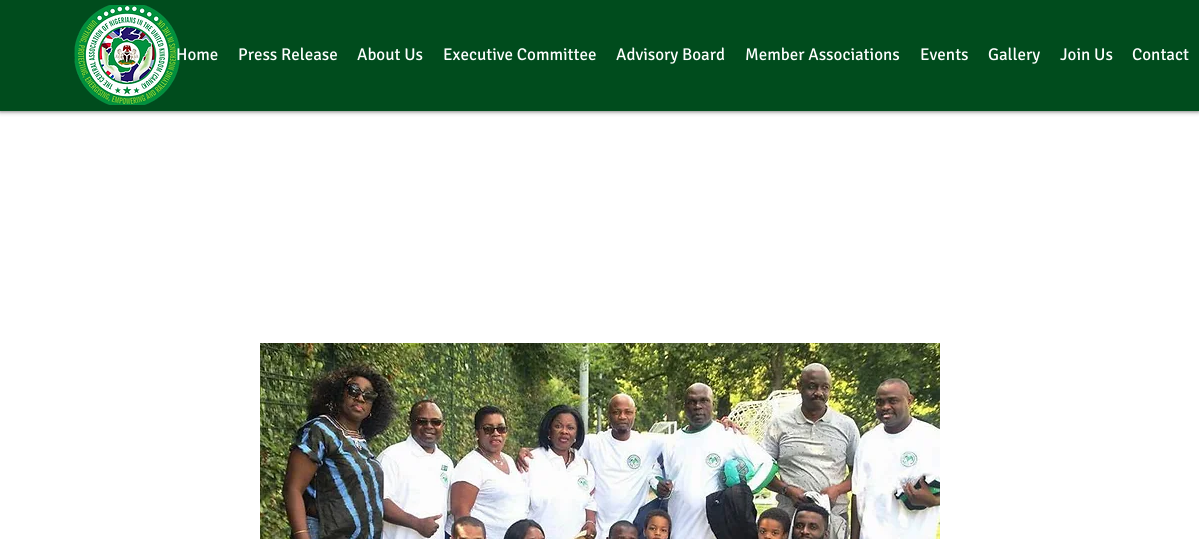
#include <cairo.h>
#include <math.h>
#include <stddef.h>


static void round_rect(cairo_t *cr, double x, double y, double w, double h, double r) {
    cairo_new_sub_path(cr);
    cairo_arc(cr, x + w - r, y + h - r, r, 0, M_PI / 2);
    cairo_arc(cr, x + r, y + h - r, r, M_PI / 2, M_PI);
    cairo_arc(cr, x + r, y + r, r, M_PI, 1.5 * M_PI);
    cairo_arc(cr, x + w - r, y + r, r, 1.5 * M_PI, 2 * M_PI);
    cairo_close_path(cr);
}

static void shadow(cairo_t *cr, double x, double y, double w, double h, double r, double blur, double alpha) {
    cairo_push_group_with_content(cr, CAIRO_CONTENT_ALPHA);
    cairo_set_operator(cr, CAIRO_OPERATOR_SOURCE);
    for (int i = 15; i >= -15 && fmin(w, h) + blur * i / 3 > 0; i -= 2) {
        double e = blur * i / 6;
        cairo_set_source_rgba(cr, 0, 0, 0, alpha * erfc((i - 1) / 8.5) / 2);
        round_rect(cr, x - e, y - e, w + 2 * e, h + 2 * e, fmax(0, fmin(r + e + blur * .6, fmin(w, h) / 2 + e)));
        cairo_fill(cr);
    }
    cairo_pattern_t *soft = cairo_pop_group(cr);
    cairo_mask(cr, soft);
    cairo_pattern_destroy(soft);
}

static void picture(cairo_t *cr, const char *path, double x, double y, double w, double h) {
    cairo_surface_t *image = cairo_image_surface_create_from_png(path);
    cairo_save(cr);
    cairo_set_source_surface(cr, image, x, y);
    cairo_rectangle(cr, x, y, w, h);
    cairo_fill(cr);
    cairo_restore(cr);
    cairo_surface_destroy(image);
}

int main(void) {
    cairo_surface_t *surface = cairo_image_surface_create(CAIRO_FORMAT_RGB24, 1199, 539);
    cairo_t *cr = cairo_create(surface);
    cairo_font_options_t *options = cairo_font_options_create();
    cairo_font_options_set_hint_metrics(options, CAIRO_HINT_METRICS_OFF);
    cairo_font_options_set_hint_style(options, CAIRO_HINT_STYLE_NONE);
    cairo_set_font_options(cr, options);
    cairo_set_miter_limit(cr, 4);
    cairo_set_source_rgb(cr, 1, 1, 1);
    cairo_paint(cr);
    cairo_set_source_rgb(cr, 0, 0, 0);
    shadow(cr, 0, 0, 1199, 111, 0, 2.5, 0.7);
    cairo_set_source_rgb(cr, 0, 0.298, 0.114);
    cairo_rectangle(cr, 0, 0, 1199, 111);
    cairo_fill(cr);
    picture(cr, "img1.png", 74, 5, 106, 100);
    cairo_select_font_face(cr, "Signika", CAIRO_FONT_SLANT_NORMAL, CAIRO_FONT_WEIGHT_NORMAL);
    cairo_set_font_size(cr, 17);
    cairo_set_source_rgb(cr, 1, 1, 1);
    cairo_move_to(cr, 176, 60);
    cairo_show_text(cr, "Home");
    cairo_move_to(cr, 238, 60);
    cairo_show_text(cr, "Press Release");
    cairo_move_to(cr, 357, 60);
    cairo_show_text(cr, "About Us");
    cairo_move_to(cr, 443, 60);
    cairo_show_text(cr, "Executive Committee");
    cairo_move_to(cr, 616, 60);
    cairo_show_text(cr, "Advisory Board");
    cairo_move_to(cr, 745, 60);
    cairo_show_text(cr, "Member Associations");
    cairo_move_to(cr, 920, 60);
    cairo_show_text(cr, "Events");
    cairo_move_to(cr, 988, 60);
    cairo_show_text(cr, "Gallery");
    cairo_move_to(cr, 1060, 60);
    cairo_show_text(cr, "Join Us");
    cairo_move_to(cr, 1132, 60);
    cairo_show_text(cr, "Contact");
    picture(cr, "img2.png", 260, 343, 680, 196);
    cairo_surface_write_to_png(surface, "page.png");
    cairo_font_options_destroy(options);
    cairo_destroy(cr);
    cairo_surface_destroy(surface);
    return 0;
}
